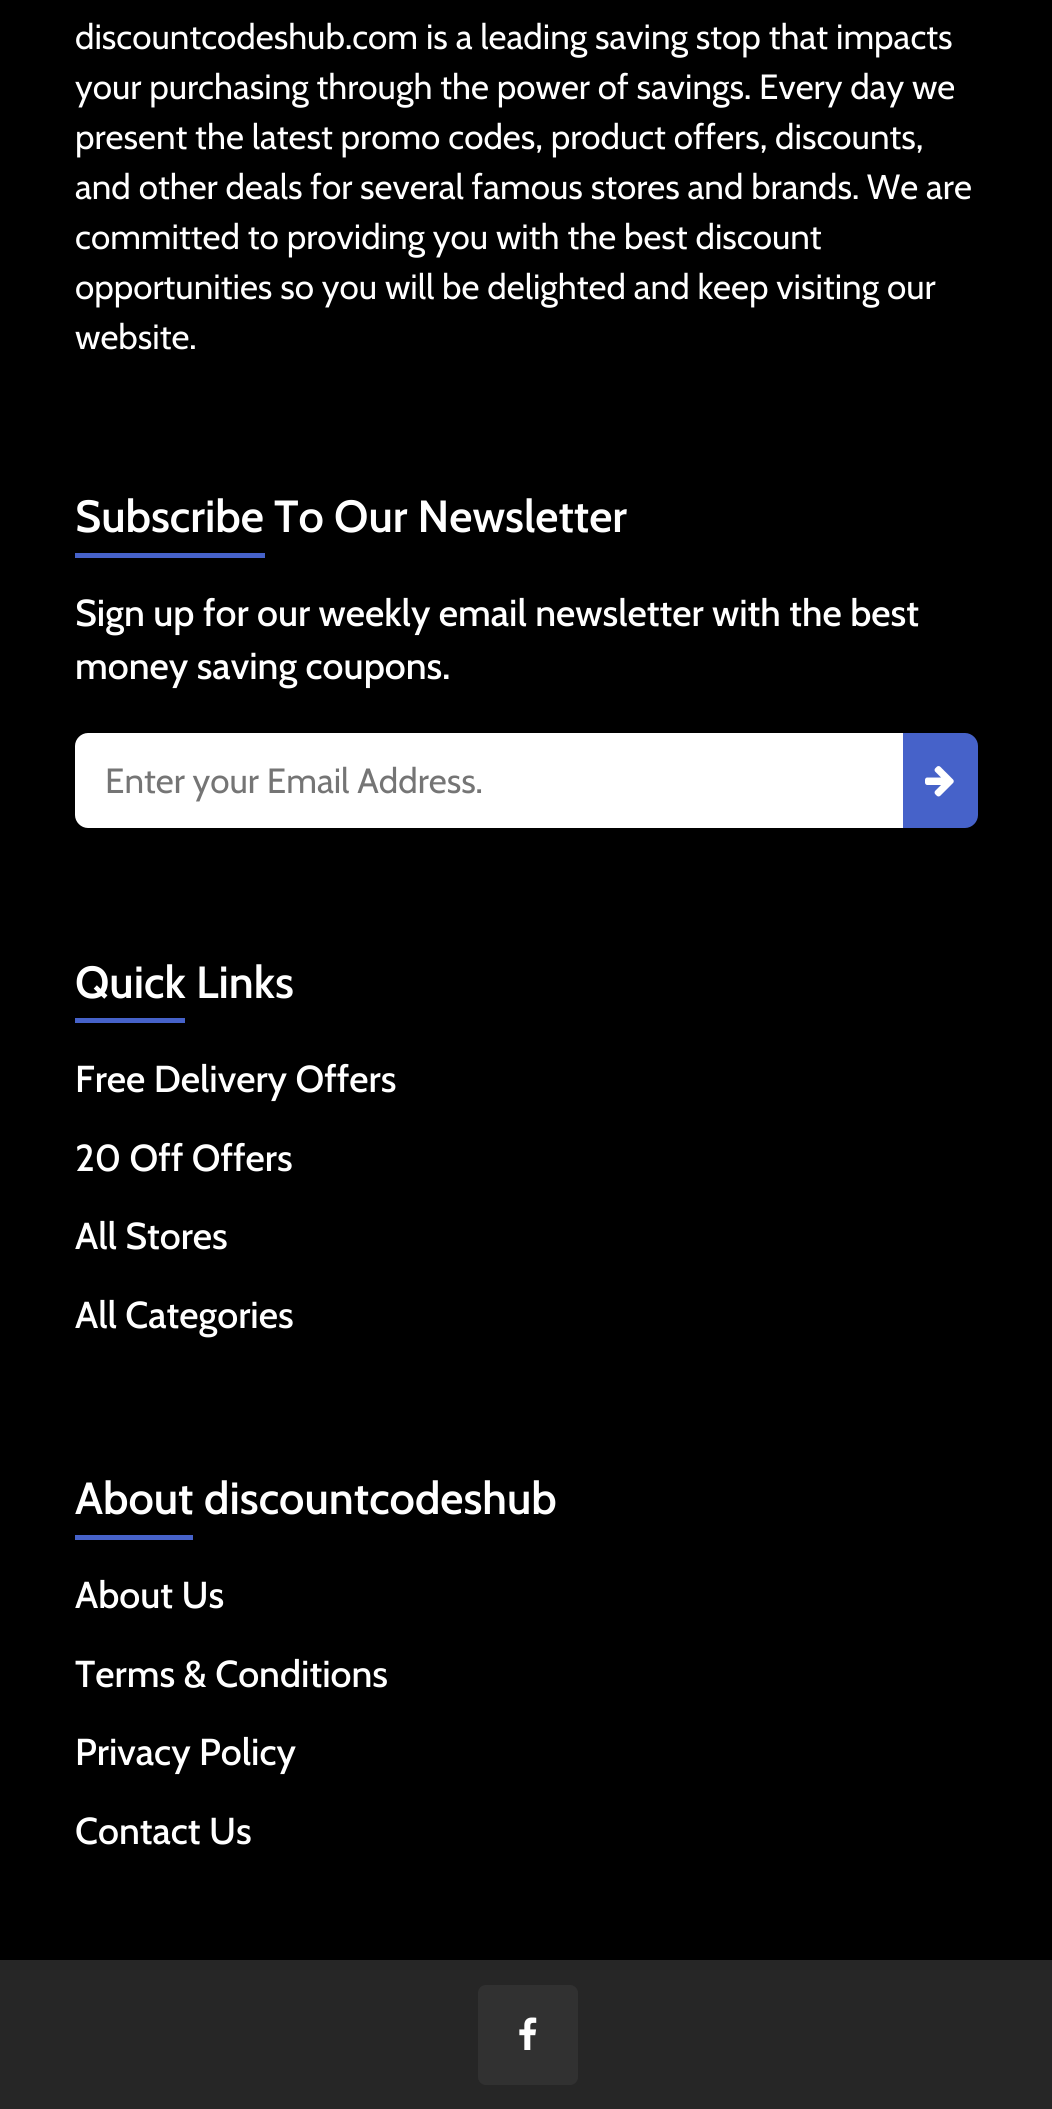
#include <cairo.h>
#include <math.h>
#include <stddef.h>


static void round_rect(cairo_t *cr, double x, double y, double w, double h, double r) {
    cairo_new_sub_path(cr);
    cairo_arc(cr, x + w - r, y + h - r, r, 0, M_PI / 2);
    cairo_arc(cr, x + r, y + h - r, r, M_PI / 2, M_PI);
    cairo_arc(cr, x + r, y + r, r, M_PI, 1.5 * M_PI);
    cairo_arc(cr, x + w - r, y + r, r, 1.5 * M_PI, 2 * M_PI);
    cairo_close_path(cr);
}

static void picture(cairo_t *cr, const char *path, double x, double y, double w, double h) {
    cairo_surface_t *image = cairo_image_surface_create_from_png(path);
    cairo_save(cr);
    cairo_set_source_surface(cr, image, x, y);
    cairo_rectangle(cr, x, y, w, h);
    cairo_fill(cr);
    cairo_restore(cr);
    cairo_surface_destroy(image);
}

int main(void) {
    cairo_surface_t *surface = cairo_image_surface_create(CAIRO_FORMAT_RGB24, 1052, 2109);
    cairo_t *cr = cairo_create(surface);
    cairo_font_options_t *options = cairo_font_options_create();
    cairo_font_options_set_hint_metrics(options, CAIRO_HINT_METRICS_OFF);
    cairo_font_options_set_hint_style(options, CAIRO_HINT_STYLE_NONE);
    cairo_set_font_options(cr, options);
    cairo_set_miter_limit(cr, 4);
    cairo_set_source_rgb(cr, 0, 0, 0);
    cairo_paint(cr);
    cairo_select_font_face(cr, "Cabin", CAIRO_FONT_SLANT_NORMAL, CAIRO_FONT_WEIGHT_NORMAL);
    cairo_set_font_size(cr, 35);
    cairo_set_source_rgb(cr, 1, 1, 1);
    cairo_move_to(cr, 75, 49);
    cairo_show_text(cr, "discountcodeshub.com is a leading saving stop that impacts");
    cairo_move_to(cr, 75, 99);
    cairo_show_text(cr, "your purchasing through the power of savings. Every day we");
    cairo_move_to(cr, 75, 149);
    cairo_show_text(cr, "present the latest promo codes, product offers, discounts,");
    cairo_move_to(cr, 75, 199);
    cairo_show_text(cr, "and other deals for several famous stores and brands. We are");
    cairo_move_to(cr, 75, 249);
    cairo_show_text(cr, "committed to providing you with the best discount");
    cairo_move_to(cr, 75, 299);
    cairo_show_text(cr, "opportunities so you will be delighted and keep visiting our");
    cairo_move_to(cr, 75, 349);
    cairo_show_text(cr, "website.");
    cairo_select_font_face(cr, "Cabin SemiBold", CAIRO_FONT_SLANT_NORMAL, CAIRO_FONT_WEIGHT_NORMAL);
    cairo_set_font_size(cr, 45);
    cairo_move_to(cr, 75, 532);
    cairo_show_text(cr, "Subscribe");
    cairo_set_source_rgb(cr, 0.275, 0.384, 0.788);
    cairo_rectangle(cr, 75, 553, 190, 5);
    cairo_fill(cr);
    cairo_set_source_rgb(cr, 1, 1, 1);
    cairo_move_to(cr, 274, 532);
    cairo_show_text(cr, "To Our Newsletter");
    cairo_select_font_face(cr, "Cabin Medium", CAIRO_FONT_SLANT_NORMAL, CAIRO_FONT_WEIGHT_NORMAL);
    cairo_set_font_size(cr, 37.5);
    cairo_move_to(cr, 75, 626);
    cairo_show_text(cr, "Sign up for our weekly email newsletter with the best");
    cairo_move_to(cr, 75, 679);
    cairo_show_text(cr, "money saving coupons.");
    cairo_new_path(cr);
    cairo_move_to(cr, 88, 733);
    cairo_line_to(cr, 903, 733);
    cairo_line_to(cr, 903, 828);
    cairo_line_to(cr, 88, 828);
    cairo_curve_to(cr, 81, 828, 75, 822, 75, 815);
    cairo_line_to(cr, 75, 746);
    cairo_curve_to(cr, 75, 739, 81, 733, 88, 733);
    cairo_close_path(cr);
    cairo_fill(cr);
    cairo_select_font_face(cr, "Cabin", CAIRO_FONT_SLANT_NORMAL, CAIRO_FONT_WEIGHT_NORMAL);
    cairo_set_font_size(cr, 35);
    cairo_set_source_rgb(cr, 0.459, 0.459, 0.459);
    cairo_move_to(cr, 105, 793);
    cairo_show_text(cr, "Enter your Email Address.");
    cairo_set_source_rgb(cr, 0.275, 0.384, 0.788);
    cairo_new_path(cr);
    cairo_move_to(cr, 903, 733);
    cairo_line_to(cr, 965, 733);
    cairo_curve_to(cr, 972, 733, 978, 739, 978, 746);
    cairo_line_to(cr, 978, 815);
    cairo_curve_to(cr, 978, 822, 972, 828, 965, 828);
    cairo_line_to(cr, 903, 828);
    cairo_close_path(cr);
    cairo_fill(cr);
    picture(cr, "img1.png", 925, 766, 29, 31);
    cairo_select_font_face(cr, "Cabin SemiBold", CAIRO_FONT_SLANT_NORMAL, CAIRO_FONT_WEIGHT_NORMAL);
    cairo_set_font_size(cr, 45);
    cairo_set_source_rgb(cr, 1, 1, 1);
    cairo_move_to(cr, 75, 998);
    cairo_show_text(cr, "Quick");
    cairo_set_source_rgb(cr, 0.275, 0.384, 0.788);
    cairo_rectangle(cr, 75, 1018, 110, 5);
    cairo_fill(cr);
    cairo_set_source_rgb(cr, 1, 1, 1);
    cairo_move_to(cr, 196, 998);
    cairo_show_text(cr, "Links");
    cairo_select_font_face(cr, "Cabin Medium", CAIRO_FONT_SLANT_NORMAL, CAIRO_FONT_WEIGHT_NORMAL);
    cairo_set_font_size(cr, 37.5);
    cairo_move_to(cr, 75, 1092);
    cairo_show_text(cr, "Free Delivery Offers");
    cairo_move_to(cr, 75, 1171);
    cairo_show_text(cr, "20 Off Offers");
    cairo_move_to(cr, 75, 1249);
    cairo_show_text(cr, "All Stores");
    cairo_move_to(cr, 75, 1328);
    cairo_show_text(cr, "All Categories");
    cairo_select_font_face(cr, "Cabin SemiBold", CAIRO_FONT_SLANT_NORMAL, CAIRO_FONT_WEIGHT_NORMAL);
    cairo_set_font_size(cr, 45);
    cairo_move_to(cr, 75, 1514);
    cairo_show_text(cr, "About");
    cairo_set_source_rgb(cr, 0.275, 0.384, 0.788);
    cairo_rectangle(cr, 75, 1535, 118, 5);
    cairo_fill(cr);
    cairo_set_source_rgb(cr, 1, 1, 1);
    cairo_move_to(cr, 204, 1514);
    cairo_show_text(cr, "discountcodeshub");
    cairo_select_font_face(cr, "Cabin Medium", CAIRO_FONT_SLANT_NORMAL, CAIRO_FONT_WEIGHT_NORMAL);
    cairo_set_font_size(cr, 37.5);
    cairo_move_to(cr, 75, 1608);
    cairo_show_text(cr, "About Us");
    cairo_move_to(cr, 75, 1687);
    cairo_show_text(cr, "Terms & Conditions");
    cairo_move_to(cr, 75, 1765);
    cairo_show_text(cr, "Privacy Policy");
    cairo_move_to(cr, 75, 1844);
    cairo_show_text(cr, "Contact Us");
    cairo_set_source_rgb(cr, 0.149, 0.149, 0.149);
    cairo_rectangle(cr, 0, 1960, 1052, 149);
    cairo_fill(cr);
    cairo_set_source_rgb(cr, 0.192, 0.192, 0.192);
    round_rect(cr, 478, 1985, 100, 100, 8);
    cairo_fill(cr);
    picture(cr, "img2.png", 519, 2017, 18, 33);
    cairo_surface_write_to_png(surface, "page.png");
    cairo_font_options_destroy(options);
    cairo_destroy(cr);
    cairo_surface_destroy(surface);
    return 0;
}
